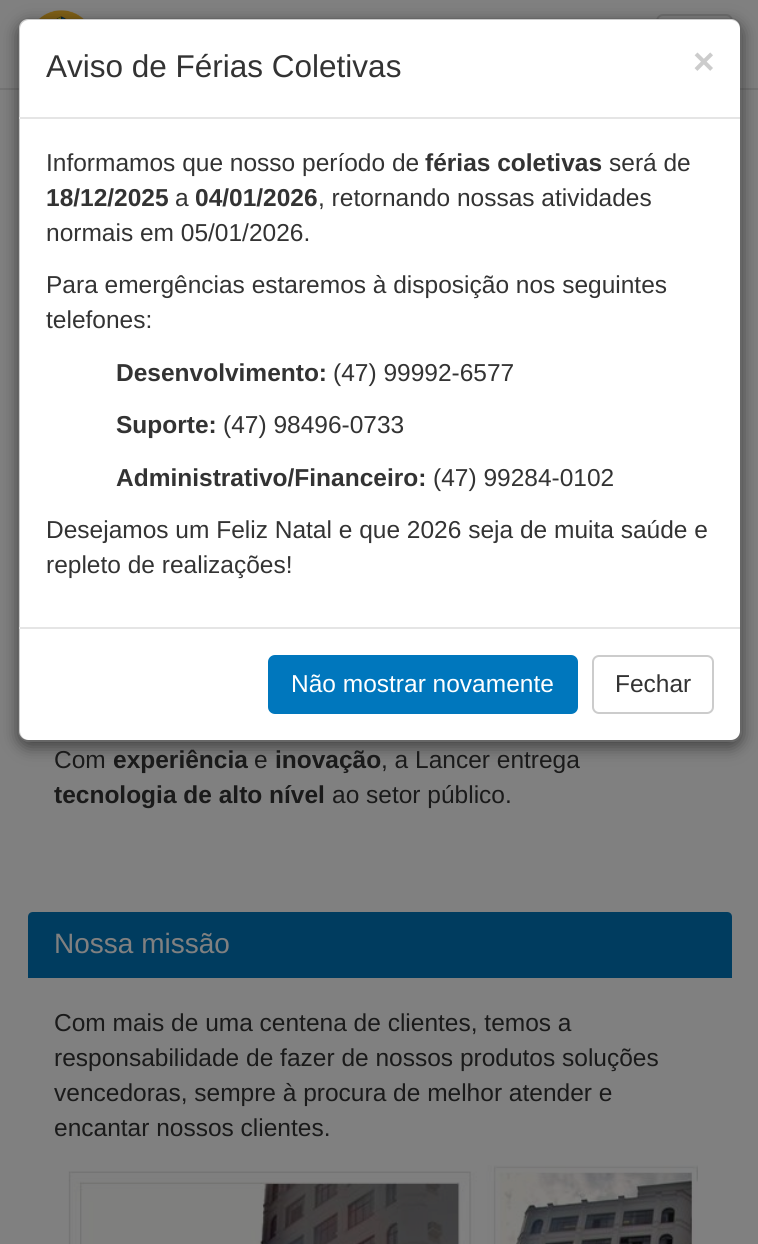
#include <cairo.h>
#include <math.h>
#include <stddef.h>


static void round_rect(cairo_t *cr, double x, double y, double w, double h, double r) {
    cairo_new_sub_path(cr);
    cairo_arc(cr, x + w - r, y + h - r, r, 0, M_PI / 2);
    cairo_arc(cr, x + r, y + h - r, r, M_PI / 2, M_PI);
    cairo_arc(cr, x + r, y + r, r, M_PI, 1.5 * M_PI);
    cairo_arc(cr, x + w - r, y + r, r, 1.5 * M_PI, 2 * M_PI);
    cairo_close_path(cr);
}

static void shadow(cairo_t *cr, double x, double y, double w, double h, double r, double blur, double alpha) {
    cairo_push_group_with_content(cr, CAIRO_CONTENT_ALPHA);
    cairo_set_operator(cr, CAIRO_OPERATOR_SOURCE);
    for (int i = 15; i >= -15 && fmin(w, h) + blur * i / 3 > 0; i -= 2) {
        double e = blur * i / 6;
        cairo_set_source_rgba(cr, 0, 0, 0, alpha * erfc((i - 1) / 8.5) / 2);
        round_rect(cr, x - e, y - e, w + 2 * e, h + 2 * e, fmax(0, fmin(r + e + blur * .6, fmin(w, h) / 2 + e)));
        cairo_fill(cr);
    }
    cairo_pattern_t *soft = cairo_pop_group(cr);
    cairo_mask(cr, soft);
    cairo_pattern_destroy(soft);
}

static void picture(cairo_t *cr, const char *path, double x, double y, double w, double h) {
    cairo_surface_t *image = cairo_image_surface_create_from_png(path);
    cairo_save(cr);
    cairo_set_source_surface(cr, image, x, y);
    cairo_rectangle(cr, x, y, w, h);
    cairo_fill(cr);
    cairo_restore(cr);
    cairo_surface_destroy(image);
}

int main(void) {
    cairo_surface_t *surface = cairo_image_surface_create(CAIRO_FORMAT_RGB24, 758, 1244);
    cairo_t *cr = cairo_create(surface);
    cairo_font_options_t *options = cairo_font_options_create();
    cairo_font_options_set_hint_metrics(options, CAIRO_HINT_METRICS_OFF);
    cairo_font_options_set_hint_style(options, CAIRO_HINT_STYLE_NONE);
    cairo_set_font_options(cr, options);
    cairo_set_miter_limit(cr, 4);
    cairo_set_source_rgb(cr, 0.502, 0.502, 0.502);
    cairo_paint(cr);
    cairo_set_source_rgb(cr, 0.455, 0.455, 0.455);
    cairo_rectangle(cr, 0, 88, 758, 2);
    cairo_fill(cr);
    picture(cr, "img1.png", 36, 10, 50, 9);
    round_rect(cr, 657, 15, 75, 58, 6);
    cairo_set_source_rgb(cr, 0.435, 0.435, 0.435);
    cairo_stroke(cr);
    cairo_save(cr);
    cairo_set_fill_rule(cr, CAIRO_FILL_RULE_EVEN_ODD);
    cairo_new_path(cr);
    cairo_move_to(cr, 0, 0);
    cairo_line_to(cr, 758, 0);
    cairo_line_to(cr, 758, 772);
    cairo_line_to(cr, 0, 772);
    cairo_close_path(cr);
    cairo_move_to(cr, 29, 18);
    cairo_line_to(cr, 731, 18);
    cairo_curve_to(cr, 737, 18, 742, 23, 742, 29);
    cairo_line_to(cr, 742, 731);
    cairo_curve_to(cr, 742, 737, 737, 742, 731, 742);
    cairo_line_to(cr, 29, 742);
    cairo_curve_to(cr, 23, 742, 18, 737, 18, 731);
    cairo_line_to(cr, 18, 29);
    cairo_curve_to(cr, 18, 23, 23, 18, 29, 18);
    cairo_close_path(cr);
    cairo_clip(cr);
    cairo_set_source_rgb(cr, 0, 0, 0);
    shadow(cr, 18, 23, 724, 724, 11, 8, 0.5);
    cairo_restore(cr);
    cairo_set_source_rgb(cr, 1, 1, 1);
    round_rect(cr, 19, 19, 721, 721, 9);
    cairo_fill(cr);
    round_rect(cr, 19, 19, 722, 722, 10);
    cairo_set_source_rgba(cr, 0, 0, 0, 0.2);
    cairo_stroke(cr);
    cairo_set_source_rgb(cr, 0.898, 0.898, 0.898);
    cairo_rectangle(cr, 19, 117, 721, 2);
    cairo_fill(cr);
    cairo_select_font_face(cr, "Liberation Sans", CAIRO_FONT_SLANT_NORMAL, CAIRO_FONT_WEIGHT_NORMAL);
    cairo_set_font_size(cr, 31.5);
    cairo_set_source_rgb(cr, 0.2, 0.2, 0.2);
    cairo_move_to(cr, 46, 77);
    cairo_show_text(cr, "Aviso de Férias Coletivas");
    cairo_select_font_face(cr, "Liberation Sans", CAIRO_FONT_SLANT_NORMAL, CAIRO_FONT_WEIGHT_BOLD);
    cairo_set_font_size(cr, 37);
    cairo_set_source_rgb(cr, 0.8, 0.8, 0.8);
    cairo_move_to(cr, 693, 74);
    cairo_show_text(cr, "×");
    cairo_select_font_face(cr, "Liberation Sans", CAIRO_FONT_SLANT_NORMAL, CAIRO_FONT_WEIGHT_NORMAL);
    cairo_set_font_size(cr, 24.5);
    cairo_set_source_rgb(cr, 0.2, 0.2, 0.2);
    cairo_move_to(cr, 46, 171);
    cairo_show_text(cr, "Informamos que nosso período de");
    cairo_select_font_face(cr, "Liberation Sans", CAIRO_FONT_SLANT_NORMAL, CAIRO_FONT_WEIGHT_BOLD);
    cairo_move_to(cr, 425, 171);
    cairo_show_text(cr, "férias coletivas");
    cairo_select_font_face(cr, "Liberation Sans", CAIRO_FONT_SLANT_NORMAL, CAIRO_FONT_WEIGHT_NORMAL);
    cairo_move_to(cr, 609, 171);
    cairo_show_text(cr, "será de");
    cairo_select_font_face(cr, "Liberation Sans", CAIRO_FONT_SLANT_NORMAL, CAIRO_FONT_WEIGHT_BOLD);
    cairo_move_to(cr, 46, 206);
    cairo_show_text(cr, "18/12/2025");
    cairo_select_font_face(cr, "Liberation Sans", CAIRO_FONT_SLANT_NORMAL, CAIRO_FONT_WEIGHT_NORMAL);
    cairo_move_to(cr, 175, 206);
    cairo_show_text(cr, "a");
    cairo_select_font_face(cr, "Liberation Sans", CAIRO_FONT_SLANT_NORMAL, CAIRO_FONT_WEIGHT_BOLD);
    cairo_move_to(cr, 195, 206);
    cairo_show_text(cr, "04/01/2026");
    cairo_select_font_face(cr, "Liberation Sans", CAIRO_FONT_SLANT_NORMAL, CAIRO_FONT_WEIGHT_NORMAL);
    cairo_move_to(cr, 318, 206);
    cairo_show_text(cr, ", retornando nossas atividades");
    cairo_move_to(cr, 46, 241);
    cairo_show_text(cr, "normais em 05/01/2026.");
    cairo_move_to(cr, 46, 293);
    cairo_show_text(cr, "Para emergências estaremos à disposição nos seguintes");
    cairo_move_to(cr, 46, 328);
    cairo_show_text(cr, "telefones:");
    cairo_select_font_face(cr, "Liberation Sans", CAIRO_FONT_SLANT_NORMAL, CAIRO_FONT_WEIGHT_BOLD);
    cairo_move_to(cr, 116, 381);
    cairo_show_text(cr, "Desenvolvimento:");
    cairo_select_font_face(cr, "Liberation Sans", CAIRO_FONT_SLANT_NORMAL, CAIRO_FONT_WEIGHT_NORMAL);
    cairo_move_to(cr, 333, 381);
    cairo_show_text(cr, "(47) 99992-6577");
    cairo_select_font_face(cr, "Liberation Sans", CAIRO_FONT_SLANT_NORMAL, CAIRO_FONT_WEIGHT_BOLD);
    cairo_move_to(cr, 116, 433);
    cairo_show_text(cr, "Suporte:");
    cairo_select_font_face(cr, "Liberation Sans", CAIRO_FONT_SLANT_NORMAL, CAIRO_FONT_WEIGHT_NORMAL);
    cairo_move_to(cr, 223, 433);
    cairo_show_text(cr, "(47) 98496-0733");
    cairo_select_font_face(cr, "Liberation Sans", CAIRO_FONT_SLANT_NORMAL, CAIRO_FONT_WEIGHT_BOLD);
    cairo_move_to(cr, 116, 486);
    cairo_show_text(cr, "Administrativo/Financeiro:");
    cairo_select_font_face(cr, "Liberation Sans", CAIRO_FONT_SLANT_NORMAL, CAIRO_FONT_WEIGHT_NORMAL);
    cairo_move_to(cr, 433, 486);
    cairo_show_text(cr, "(47) 99284-0102");
    cairo_move_to(cr, 46, 538);
    cairo_show_text(cr, "Desejamos um Feliz Natal e que 2026 seja de muita saúde e");
    cairo_move_to(cr, 46, 573);
    cairo_show_text(cr, "repleto de realizações!");
    cairo_set_source_rgb(cr, 0.898, 0.898, 0.898);
    cairo_rectangle(cr, 19, 627, 721, 2);
    cairo_fill(cr);
    cairo_set_source_rgb(cr, 0, 0.467, 0.741);
    round_rect(cr, 269, 656, 308, 57, 6);
    cairo_fill_preserve(cr);
    cairo_stroke(cr);
    cairo_set_source_rgb(cr, 1, 1, 1);
    cairo_move_to(cr, 291, 692);
    cairo_show_text(cr, "Não mostrar novamente");
    round_rect(cr, 593, 656, 120, 57, 6);
    cairo_set_source_rgb(cr, 0.8, 0.8, 0.8);
    cairo_stroke(cr);
    cairo_set_source_rgb(cr, 0.2, 0.2, 0.2);
    cairo_move_to(cr, 615, 692);
    cairo_show_text(cr, "Fechar");
    cairo_set_source_rgb(cr, 0.102, 0.102, 0.102);
    cairo_move_to(cr, 54, 768);
    cairo_show_text(cr, "Com");
    cairo_select_font_face(cr, "Liberation Sans", CAIRO_FONT_SLANT_NORMAL, CAIRO_FONT_WEIGHT_BOLD);
    cairo_move_to(cr, 113, 768);
    cairo_show_text(cr, "experiência");
    cairo_select_font_face(cr, "Liberation Sans", CAIRO_FONT_SLANT_NORMAL, CAIRO_FONT_WEIGHT_NORMAL);
    cairo_move_to(cr, 254, 768);
    cairo_show_text(cr, "e");
    cairo_select_font_face(cr, "Liberation Sans", CAIRO_FONT_SLANT_NORMAL, CAIRO_FONT_WEIGHT_BOLD);
    cairo_move_to(cr, 275, 768);
    cairo_show_text(cr, "inovação");
    cairo_select_font_face(cr, "Liberation Sans", CAIRO_FONT_SLANT_NORMAL, CAIRO_FONT_WEIGHT_NORMAL);
    cairo_move_to(cr, 381, 768);
    cairo_show_text(cr, ", a Lancer entrega");
    cairo_select_font_face(cr, "Liberation Sans", CAIRO_FONT_SLANT_NORMAL, CAIRO_FONT_WEIGHT_BOLD);
    cairo_move_to(cr, 54, 803);
    cairo_show_text(cr, "tecnologia de alto nível");
    cairo_select_font_face(cr, "Liberation Sans", CAIRO_FONT_SLANT_NORMAL, CAIRO_FONT_WEIGHT_NORMAL);
    cairo_move_to(cr, 332, 803);
    cairo_show_text(cr, "ao setor público.");
    cairo_set_source_rgb(cr, 0, 0.235, 0.373);
    cairo_new_path(cr);
    cairo_move_to(cr, 33, 912);
    cairo_line_to(cr, 727, 912);
    cairo_curve_to(cr, 730, 912, 732, 914, 732, 917);
    cairo_line_to(cr, 732, 978);
    cairo_line_to(cr, 28, 978);
    cairo_line_to(cr, 28, 917);
    cairo_curve_to(cr, 28, 914, 30, 912, 33, 912);
    cairo_close_path(cr);
    cairo_fill(cr);
    cairo_set_font_size(cr, 28);
    cairo_set_source_rgb(cr, 0.502, 0.502, 0.502);
    cairo_move_to(cr, 54, 953);
    cairo_show_text(cr, "Nossa missão");
    cairo_set_font_size(cr, 24.5);
    cairo_set_source_rgb(cr, 0.102, 0.102, 0.102);
    cairo_move_to(cr, 54, 1031);
    cairo_show_text(cr, "Com mais de uma centena de clientes, temos a");
    cairo_move_to(cr, 54, 1066);
    cairo_show_text(cr, "responsabilidade de fazer de nossos produtos soluções");
    cairo_move_to(cr, 54, 1101);
    cairo_show_text(cr, "vencedoras, sempre à procura de melhor atender e");
    cairo_move_to(cr, 54, 1136);
    cairo_show_text(cr, "encantar nossos clientes.");
    picture(cr, "img2.png", 68, 1165, 630, 79);
    cairo_surface_write_to_png(surface, "page.png");
    cairo_font_options_destroy(options);
    cairo_destroy(cr);
    cairo_surface_destroy(surface);
    return 0;
}
